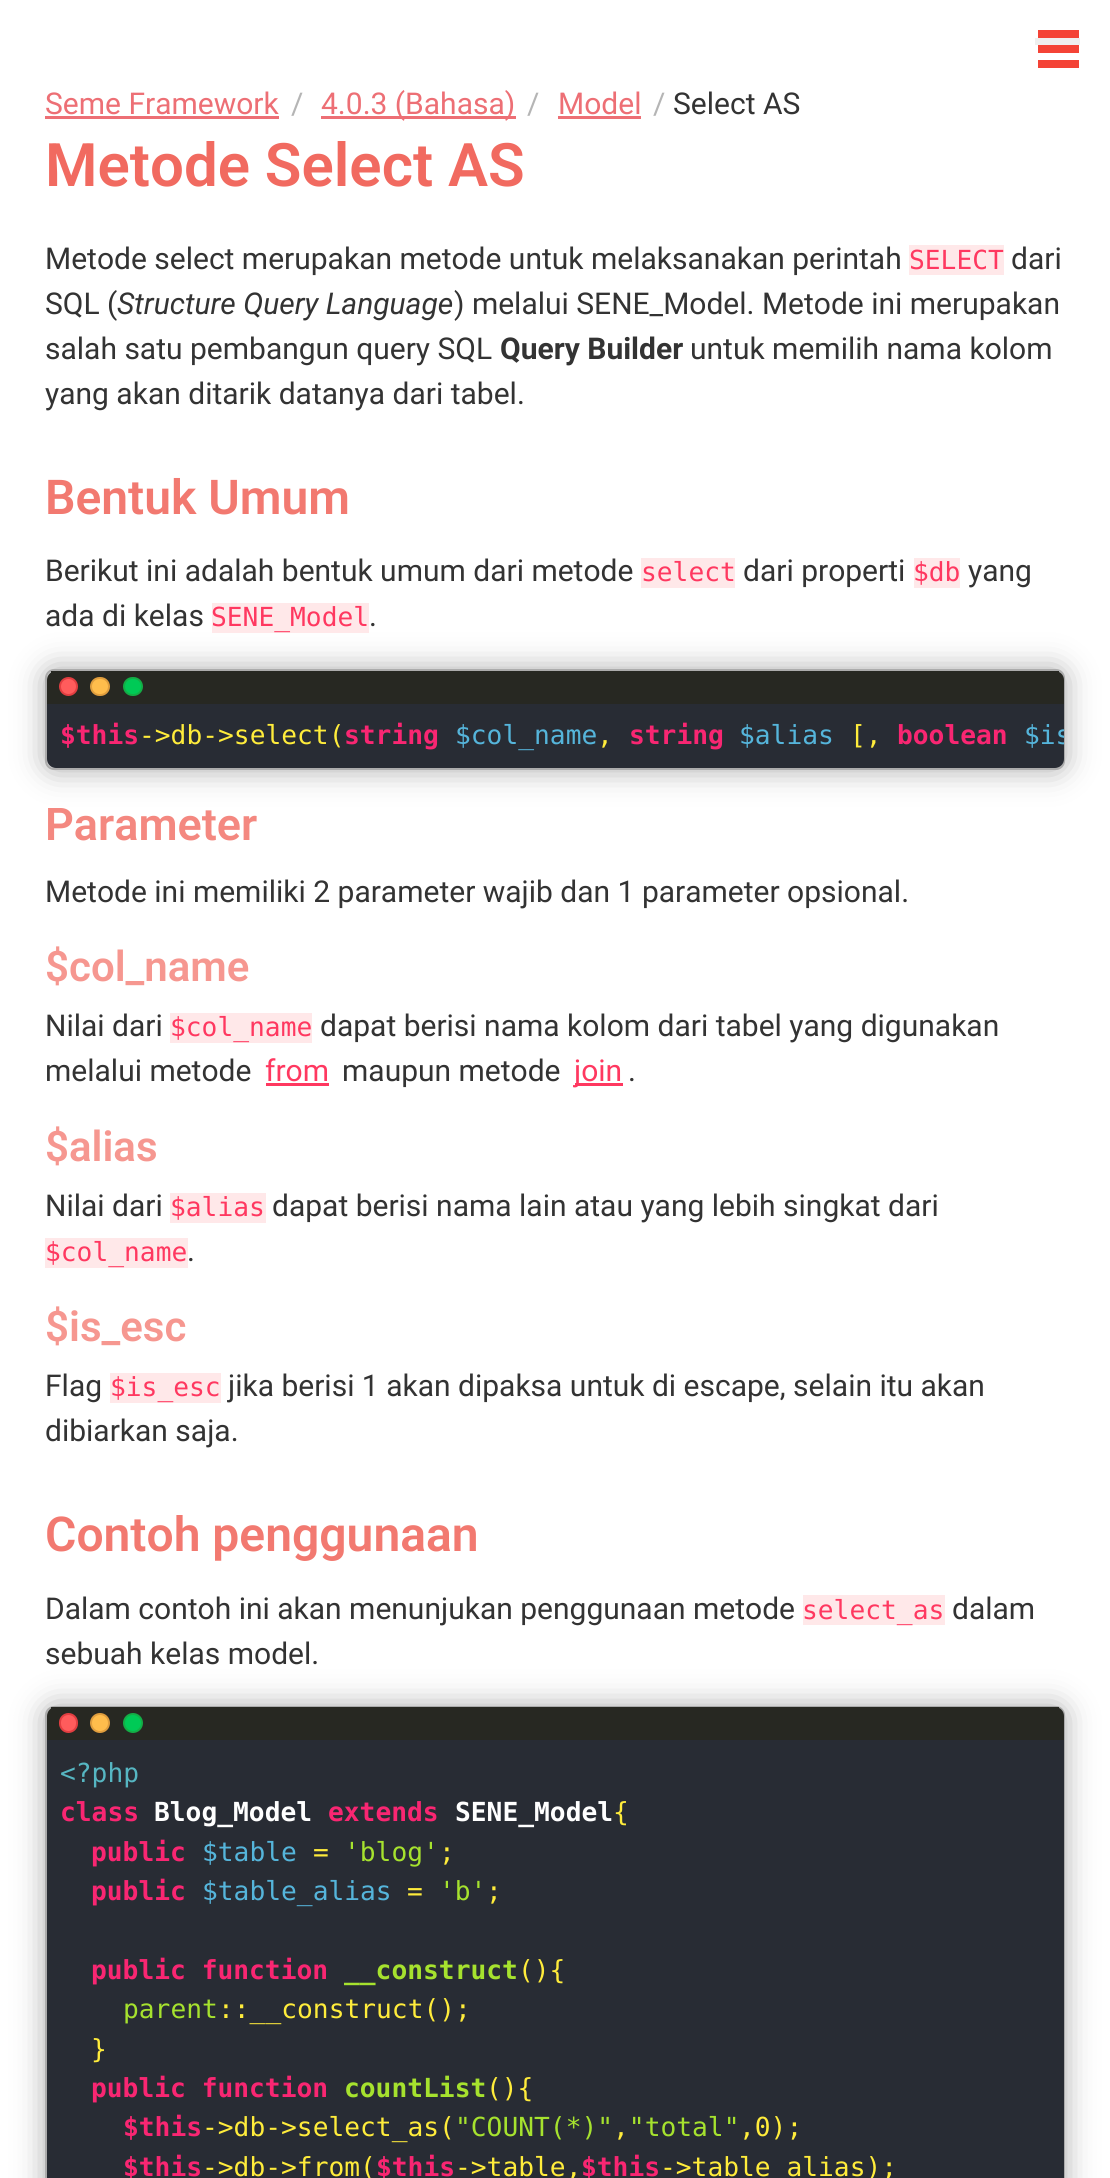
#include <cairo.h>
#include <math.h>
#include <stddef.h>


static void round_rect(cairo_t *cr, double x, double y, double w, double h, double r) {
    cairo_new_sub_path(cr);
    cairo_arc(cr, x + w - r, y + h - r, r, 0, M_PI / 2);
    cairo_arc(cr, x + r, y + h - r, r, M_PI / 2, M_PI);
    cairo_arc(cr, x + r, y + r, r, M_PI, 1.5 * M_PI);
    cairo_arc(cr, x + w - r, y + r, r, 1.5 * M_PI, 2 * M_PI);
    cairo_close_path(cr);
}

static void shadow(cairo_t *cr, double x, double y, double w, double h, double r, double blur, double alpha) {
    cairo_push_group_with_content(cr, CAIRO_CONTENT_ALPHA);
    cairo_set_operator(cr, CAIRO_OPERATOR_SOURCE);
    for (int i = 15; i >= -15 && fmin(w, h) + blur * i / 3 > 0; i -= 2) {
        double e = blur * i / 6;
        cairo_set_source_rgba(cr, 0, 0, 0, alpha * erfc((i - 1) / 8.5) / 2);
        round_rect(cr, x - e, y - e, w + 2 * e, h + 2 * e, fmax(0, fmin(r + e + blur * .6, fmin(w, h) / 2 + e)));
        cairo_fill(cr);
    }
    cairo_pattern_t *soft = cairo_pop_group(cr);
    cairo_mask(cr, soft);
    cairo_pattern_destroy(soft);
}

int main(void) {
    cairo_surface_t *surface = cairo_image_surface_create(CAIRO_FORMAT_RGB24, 1110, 2178);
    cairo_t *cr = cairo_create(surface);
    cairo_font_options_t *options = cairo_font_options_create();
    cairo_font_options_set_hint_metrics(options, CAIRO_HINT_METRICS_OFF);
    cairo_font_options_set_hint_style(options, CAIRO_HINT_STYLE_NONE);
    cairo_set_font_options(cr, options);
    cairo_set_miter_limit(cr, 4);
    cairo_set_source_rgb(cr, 1, 1, 1);
    cairo_paint(cr);
    cairo_set_source_rgb(cr, 0.937, 0.937, 0.937);
    cairo_new_path(cr);
    cairo_move_to(cr, 1040, 38);
    cairo_line_to(cr, 1080, 38);
    cairo_line_to(cr, 1080, 45);
    cairo_line_to(cr, 1035, 45);
    cairo_line_to(cr, 1035, 38);
    cairo_close_path(cr);
    cairo_fill(cr);
    cairo_set_source_rgb(cr, 0.957, 0.263, 0.212);
    cairo_rectangle(cr, 1038, 30, 41, 8);
    cairo_fill(cr);
    cairo_rectangle(cr, 1038, 45, 41, 8);
    cairo_fill(cr);
    cairo_rectangle(cr, 1038, 60, 41, 8);
    cairo_fill(cr);
    cairo_select_font_face(cr, "Roboto", CAIRO_FONT_SLANT_NORMAL, CAIRO_FONT_WEIGHT_NORMAL);
    cairo_set_font_size(cr, 30);
    cairo_set_source_rgb(cr, 0.929, 0.435, 0.459);
    cairo_move_to(cr, 45, 114);
    cairo_show_text(cr, "Seme Framework");
    cairo_rectangle(cr, 45, 116, 234, 3);
    cairo_fill(cr);
    cairo_set_source_rgb(cr, 0.71, 0.71, 0.71);
    cairo_move_to(cr, 291, 114);
    cairo_show_text(cr, "/");
    cairo_set_source_rgb(cr, 0.929, 0.435, 0.459);
    cairo_rectangle(cr, 321, 116, 195, 3);
    cairo_fill(cr);
    cairo_move_to(cr, 321, 114);
    cairo_show_text(cr, "4.0.3 (Bahasa)");
    cairo_set_source_rgb(cr, 0.71, 0.71, 0.71);
    cairo_move_to(cr, 527, 114);
    cairo_show_text(cr, "/");
    cairo_set_source_rgb(cr, 0.929, 0.435, 0.459);
    cairo_move_to(cr, 558, 114);
    cairo_show_text(cr, "Model");
    cairo_rectangle(cr, 558, 116, 83, 3);
    cairo_fill(cr);
    cairo_set_source_rgb(cr, 0.71, 0.71, 0.71);
    cairo_move_to(cr, 653, 114);
    cairo_show_text(cr, "/");
    cairo_set_source_rgb(cr, 0.2, 0.2, 0.2);
    cairo_move_to(cr, 673, 114);
    cairo_show_text(cr, "Select AS");
    cairo_select_font_face(cr, "Roboto SemiBold", CAIRO_FONT_SLANT_NORMAL, CAIRO_FONT_WEIGHT_NORMAL);
    cairo_set_font_size(cr, 60);
    cairo_set_source_rgb(cr, 0.945, 0.416, 0.376);
    cairo_move_to(cr, 45, 186);
    cairo_show_text(cr, "Metode Select AS");
    cairo_select_font_face(cr, "Roboto", CAIRO_FONT_SLANT_NORMAL, CAIRO_FONT_WEIGHT_NORMAL);
    cairo_set_font_size(cr, 30);
    cairo_set_source_rgb(cr, 0.2, 0.2, 0.2);
    cairo_move_to(cr, 45, 269);
    cairo_show_text(cr, "Metode select merupakan metode untuk melaksanakan perintah");
    cairo_set_source_rgb(cr, 1, 0.91, 0.914);
    cairo_rectangle(cr, 909, 245, 95, 30);
    cairo_fill(cr);
    cairo_select_font_face(cr, "DejaVu Sans Mono", CAIRO_FONT_SLANT_NORMAL, CAIRO_FONT_WEIGHT_NORMAL);
    cairo_set_font_size(cr, 26.25);
    cairo_set_source_rgb(cr, 1, 0.22, 0.376);
    cairo_move_to(cr, 909, 269);
    cairo_show_text(cr, "SELECT");
    cairo_select_font_face(cr, "Roboto", CAIRO_FONT_SLANT_NORMAL, CAIRO_FONT_WEIGHT_NORMAL);
    cairo_set_font_size(cr, 30);
    cairo_set_source_rgb(cr, 0.2, 0.2, 0.2);
    cairo_move_to(cr, 1011, 269);
    cairo_show_text(cr, "dari");
    cairo_move_to(cr, 45, 314);
    cairo_show_text(cr, "SQL (");
    cairo_select_font_face(cr, "Roboto", CAIRO_FONT_SLANT_ITALIC, CAIRO_FONT_WEIGHT_NORMAL);
    cairo_move_to(cr, 117, 314);
    cairo_show_text(cr, "Structure Query Language");
    cairo_select_font_face(cr, "Roboto", CAIRO_FONT_SLANT_NORMAL, CAIRO_FONT_WEIGHT_NORMAL);
    cairo_move_to(cr, 454, 314);
    cairo_show_text(cr, ") melalui SENE_Model. Metode ini merupakan");
    cairo_move_to(cr, 45, 359);
    cairo_show_text(cr, "salah satu pembangun query SQL");
    cairo_select_font_face(cr, "Roboto", CAIRO_FONT_SLANT_NORMAL, CAIRO_FONT_WEIGHT_BOLD);
    cairo_move_to(cr, 500, 359);
    cairo_show_text(cr, "Query Builder");
    cairo_select_font_face(cr, "Roboto", CAIRO_FONT_SLANT_NORMAL, CAIRO_FONT_WEIGHT_NORMAL);
    cairo_move_to(cr, 690, 359);
    cairo_show_text(cr, "untuk memilih nama kolom");
    cairo_move_to(cr, 45, 404);
    cairo_show_text(cr, "yang akan ditarik datanya dari tabel.");
    cairo_select_font_face(cr, "Roboto SemiBold", CAIRO_FONT_SLANT_NORMAL, CAIRO_FONT_WEIGHT_NORMAL);
    cairo_set_font_size(cr, 48);
    cairo_set_source_rgb(cr, 0.949, 0.475, 0.439);
    cairo_move_to(cr, 45, 514);
    cairo_show_text(cr, "Bentuk Umum");
    cairo_select_font_face(cr, "Roboto", CAIRO_FONT_SLANT_NORMAL, CAIRO_FONT_WEIGHT_NORMAL);
    cairo_set_font_size(cr, 30);
    cairo_set_source_rgb(cr, 0.2, 0.2, 0.2);
    cairo_move_to(cr, 45, 581);
    cairo_show_text(cr, "Berikut ini adalah bentuk umum dari metode");
    cairo_set_source_rgb(cr, 1, 0.91, 0.914);
    cairo_rectangle(cr, 641, 558, 94, 30);
    cairo_fill(cr);
    cairo_select_font_face(cr, "DejaVu Sans Mono", CAIRO_FONT_SLANT_NORMAL, CAIRO_FONT_WEIGHT_NORMAL);
    cairo_set_font_size(cr, 26.25);
    cairo_set_source_rgb(cr, 1, 0.22, 0.376);
    cairo_move_to(cr, 641, 581);
    cairo_show_text(cr, "select");
    cairo_select_font_face(cr, "Roboto", CAIRO_FONT_SLANT_NORMAL, CAIRO_FONT_WEIGHT_NORMAL);
    cairo_set_font_size(cr, 30);
    cairo_set_source_rgb(cr, 0.2, 0.2, 0.2);
    cairo_move_to(cr, 743, 581);
    cairo_show_text(cr, "dari properti");
    cairo_set_source_rgb(cr, 1, 0.91, 0.914);
    cairo_rectangle(cr, 914, 558, 46, 30);
    cairo_fill(cr);
    cairo_select_font_face(cr, "DejaVu Sans Mono", CAIRO_FONT_SLANT_NORMAL, CAIRO_FONT_WEIGHT_NORMAL);
    cairo_set_font_size(cr, 26.25);
    cairo_set_source_rgb(cr, 1, 0.22, 0.376);
    cairo_move_to(cr, 913, 581);
    cairo_show_text(cr, "$db");
    cairo_select_font_face(cr, "Roboto", CAIRO_FONT_SLANT_NORMAL, CAIRO_FONT_WEIGHT_NORMAL);
    cairo_set_font_size(cr, 30);
    cairo_set_source_rgb(cr, 0.2, 0.2, 0.2);
    cairo_move_to(cr, 968, 581);
    cairo_show_text(cr, "yang");
    cairo_set_source_rgb(cr, 0.675, 0.675, 0.675);
    shadow(cr, 45, 669, 1020, 101, 9, 15, 1);
    cairo_set_source_rgb(cr, 0.2, 0.2, 0.2);
    cairo_move_to(cr, 45, 626);
    cairo_show_text(cr, "ada di kelas");
    cairo_set_source_rgb(cr, 1, 0.91, 0.914);
    cairo_rectangle(cr, 212, 603, 157, 30);
    cairo_fill(cr);
    cairo_select_font_face(cr, "DejaVu Sans Mono", CAIRO_FONT_SLANT_NORMAL, CAIRO_FONT_WEIGHT_NORMAL);
    cairo_set_font_size(cr, 26.25);
    cairo_set_source_rgb(cr, 1, 0.22, 0.376);
    cairo_move_to(cr, 211, 626);
    cairo_show_text(cr, "SENE_Model");
    cairo_select_font_face(cr, "Roboto", CAIRO_FONT_SLANT_NORMAL, CAIRO_FONT_WEIGHT_NORMAL);
    cairo_set_font_size(cr, 30);
    cairo_set_source_rgb(cr, 0.2, 0.2, 0.2);
    cairo_move_to(cr, 369, 626);
    cairo_show_text(cr, ".");
    round_rect(cr, 46, 670, 1018, 99, 8);
    cairo_set_source_rgb(cr, 0.675, 0.675, 0.675);
    cairo_stroke(cr);
    cairo_set_source_rgb(cr, 0.153, 0.157, 0.133);
    cairo_new_path(cr);
    cairo_move_to(cr, 56, 671);
    cairo_line_to(cr, 1055, 671);
    cairo_curve_to(cr, 1060, 671, 1064, 675, 1064, 680);
    cairo_line_to(cr, 1064, 704);
    cairo_line_to(cr, 47, 704);
    cairo_line_to(cr, 47, 680);
    cairo_curve_to(cr, 47, 675, 51, 671, 56, 671);
    cairo_close_path(cr);
    cairo_fill(cr);
    cairo_rectangle(cr, 51, 671, 1008, 2);
    cairo_fill(cr);
    cairo_set_source_rgb(cr, 1, 0.361, 0.361);
    cairo_arc(cr, 68.5, 686.5, 8.5, 0, 2 * M_PI);
    cairo_fill_preserve(cr);
    cairo_set_source_rgb(cr, 0.89, 0.243, 0.255);
    cairo_stroke(cr);
    cairo_set_source_rgb(cr, 1, 0.741, 0.298);
    round_rect(cr, 91, 678, 18, 17, 8.5);
    cairo_fill_preserve(cr);
    cairo_set_source_rgb(cr, 0.878, 0.62, 0.243);
    cairo_stroke(cr);
    cairo_set_source_rgb(cr, 0, 0.792, 0.337);
    round_rect(cr, 124, 678, 18, 17, 8.5);
    cairo_fill_preserve(cr);
    cairo_set_source_rgb(cr, 0.078, 0.682, 0.275);
    cairo_stroke(cr);
    cairo_set_source_rgb(cr, 0.157, 0.173, 0.204);
    cairo_new_path(cr);
    cairo_move_to(cr, 47, 704);
    cairo_line_to(cr, 1064, 704);
    cairo_line_to(cr, 1064, 759);
    cairo_curve_to(cr, 1064, 764, 1060, 768, 1055, 768);
    cairo_line_to(cr, 56, 768);
    cairo_curve_to(cr, 51, 768, 47, 764, 47, 759);
    cairo_close_path(cr);
    cairo_fill(cr);
    cairo_select_font_face(cr, "DejaVu Sans Mono", CAIRO_FONT_SLANT_NORMAL, CAIRO_FONT_WEIGHT_BOLD);
    cairo_set_font_size(cr, 26.25);
    cairo_set_source_rgb(cr, 0.976, 0.149, 0.447);
    cairo_move_to(cr, 60, 744);
    cairo_show_text(cr, "$this");
    cairo_select_font_face(cr, "DejaVu Sans Mono", CAIRO_FONT_SLANT_NORMAL, CAIRO_FONT_WEIGHT_NORMAL);
    cairo_set_source_rgb(cr, 1, 0.922, 0.231);
    cairo_move_to(cr, 139, 744);
    cairo_show_text(cr, "->db->select(");
    cairo_select_font_face(cr, "DejaVu Sans Mono", CAIRO_FONT_SLANT_NORMAL, CAIRO_FONT_WEIGHT_BOLD);
    cairo_set_source_rgb(cr, 0.976, 0.149, 0.447);
    cairo_move_to(cr, 344, 744);
    cairo_show_text(cr, "string");
    cairo_select_font_face(cr, "DejaVu Sans Mono", CAIRO_FONT_SLANT_NORMAL, CAIRO_FONT_WEIGHT_NORMAL);
    cairo_set_source_rgb(cr, 0.333, 0.71, 0.859);
    cairo_move_to(cr, 455, 744);
    cairo_show_text(cr, "$col_name");
    cairo_set_source_rgb(cr, 1, 0.922, 0.231);
    cairo_move_to(cr, 597, 744);
    cairo_show_text(cr, ",");
    cairo_select_font_face(cr, "DejaVu Sans Mono", CAIRO_FONT_SLANT_NORMAL, CAIRO_FONT_WEIGHT_BOLD);
    cairo_set_source_rgb(cr, 0.976, 0.149, 0.447);
    cairo_move_to(cr, 629, 744);
    cairo_show_text(cr, "string");
    cairo_select_font_face(cr, "DejaVu Sans Mono", CAIRO_FONT_SLANT_NORMAL, CAIRO_FONT_WEIGHT_NORMAL);
    cairo_set_source_rgb(cr, 0.333, 0.71, 0.859);
    cairo_move_to(cr, 739, 744);
    cairo_show_text(cr, "$alias");
    cairo_set_source_rgb(cr, 1, 0.922, 0.231);
    cairo_move_to(cr, 850, 744);
    cairo_show_text(cr, "[,");
    cairo_select_font_face(cr, "DejaVu Sans Mono", CAIRO_FONT_SLANT_NORMAL, CAIRO_FONT_WEIGHT_BOLD);
    cairo_set_source_rgb(cr, 0.976, 0.149, 0.447);
    cairo_move_to(cr, 897, 744);
    cairo_show_text(cr, "boolean");
    cairo_save(cr);
    cairo_rectangle(cr, 47, 704, 1017, 64);
    cairo_clip(cr);
    cairo_select_font_face(cr, "DejaVu Sans Mono", CAIRO_FONT_SLANT_NORMAL, CAIRO_FONT_WEIGHT_NORMAL);
    cairo_set_source_rgb(cr, 0.333, 0.71, 0.859);
    cairo_move_to(cr, 1024, 744);
    cairo_show_text(cr, "$is");
    cairo_restore(cr);
    cairo_select_font_face(cr, "Roboto SemiBold", CAIRO_FONT_SLANT_NORMAL, CAIRO_FONT_WEIGHT_NORMAL);
    cairo_set_font_size(cr, 45);
    cairo_set_source_rgb(cr, 0.957, 0.533, 0.502);
    cairo_move_to(cr, 45, 840);
    cairo_show_text(cr, "Parameter");
    cairo_select_font_face(cr, "Roboto", CAIRO_FONT_SLANT_NORMAL, CAIRO_FONT_WEIGHT_NORMAL);
    cairo_set_font_size(cr, 30);
    cairo_set_source_rgb(cr, 0.2, 0.2, 0.2);
    cairo_move_to(cr, 45, 902);
    cairo_show_text(cr, "Metode ini memiliki 2 parameter wajib dan 1 parameter opsional.");
    cairo_select_font_face(cr, "Roboto SemiBold", CAIRO_FONT_SLANT_NORMAL, CAIRO_FONT_WEIGHT_NORMAL);
    cairo_set_font_size(cr, 42);
    cairo_set_source_rgb(cr, 0.961, 0.592, 0.565);
    cairo_move_to(cr, 45, 981);
    cairo_show_text(cr, "$col_name");
    cairo_select_font_face(cr, "Roboto", CAIRO_FONT_SLANT_NORMAL, CAIRO_FONT_WEIGHT_NORMAL);
    cairo_set_font_size(cr, 30);
    cairo_set_source_rgb(cr, 0.2, 0.2, 0.2);
    cairo_move_to(cr, 45, 1036);
    cairo_show_text(cr, "Nilai dari");
    cairo_set_source_rgb(cr, 1, 0.91, 0.914);
    cairo_rectangle(cr, 170, 1013, 142, 30);
    cairo_fill(cr);
    cairo_select_font_face(cr, "DejaVu Sans Mono", CAIRO_FONT_SLANT_NORMAL, CAIRO_FONT_WEIGHT_NORMAL);
    cairo_set_font_size(cr, 26.25);
    cairo_set_source_rgb(cr, 1, 0.22, 0.376);
    cairo_move_to(cr, 170, 1036);
    cairo_show_text(cr, "$col_name");
    cairo_select_font_face(cr, "Roboto", CAIRO_FONT_SLANT_NORMAL, CAIRO_FONT_WEIGHT_NORMAL);
    cairo_set_font_size(cr, 30);
    cairo_set_source_rgb(cr, 0.2, 0.2, 0.2);
    cairo_move_to(cr, 320, 1036);
    cairo_show_text(cr, "dapat berisi nama kolom dari tabel yang digunakan");
    cairo_move_to(cr, 45, 1081);
    cairo_show_text(cr, "melalui metode");
    cairo_set_source_rgb(cr, 1, 0.22, 0.376);
    cairo_move_to(cr, 265, 1081);
    cairo_show_text(cr, "from");
    cairo_rectangle(cr, 266, 1083, 63, 3);
    cairo_fill(cr);
    cairo_set_source_rgb(cr, 0.2, 0.2, 0.2);
    cairo_move_to(cr, 342, 1081);
    cairo_show_text(cr, "maupun metode");
    cairo_set_source_rgb(cr, 1, 0.22, 0.376);
    cairo_rectangle(cr, 575, 1083, 48, 3);
    cairo_fill(cr);
    cairo_move_to(cr, 574, 1081);
    cairo_show_text(cr, "join");
    cairo_set_source_rgb(cr, 0.2, 0.2, 0.2);
    cairo_move_to(cr, 628, 1081);
    cairo_show_text(cr, ".");
    cairo_select_font_face(cr, "Roboto SemiBold", CAIRO_FONT_SLANT_NORMAL, CAIRO_FONT_WEIGHT_NORMAL);
    cairo_set_font_size(cr, 42);
    cairo_set_source_rgb(cr, 0.961, 0.592, 0.565);
    cairo_move_to(cr, 45, 1161);
    cairo_show_text(cr, "$alias");
    cairo_select_font_face(cr, "Roboto", CAIRO_FONT_SLANT_NORMAL, CAIRO_FONT_WEIGHT_NORMAL);
    cairo_set_font_size(cr, 30);
    cairo_set_source_rgb(cr, 0.2, 0.2, 0.2);
    cairo_move_to(cr, 45, 1216);
    cairo_show_text(cr, "Nilai dari");
    cairo_set_source_rgb(cr, 1, 0.91, 0.914);
    cairo_rectangle(cr, 170, 1193, 96, 30);
    cairo_fill(cr);
    cairo_select_font_face(cr, "DejaVu Sans Mono", CAIRO_FONT_SLANT_NORMAL, CAIRO_FONT_WEIGHT_NORMAL);
    cairo_set_font_size(cr, 26.25);
    cairo_set_source_rgb(cr, 1, 0.22, 0.376);
    cairo_move_to(cr, 170, 1216);
    cairo_show_text(cr, "$alias");
    cairo_select_font_face(cr, "Roboto", CAIRO_FONT_SLANT_NORMAL, CAIRO_FONT_WEIGHT_NORMAL);
    cairo_set_font_size(cr, 30);
    cairo_set_source_rgb(cr, 0.2, 0.2, 0.2);
    cairo_move_to(cr, 272, 1216);
    cairo_show_text(cr, "dapat berisi nama lain atau yang lebih singkat dari");
    cairo_set_source_rgb(cr, 1, 0.91, 0.914);
    cairo_rectangle(cr, 45, 1238, 143, 30);
    cairo_fill(cr);
    cairo_select_font_face(cr, "DejaVu Sans Mono", CAIRO_FONT_SLANT_NORMAL, CAIRO_FONT_WEIGHT_NORMAL);
    cairo_set_font_size(cr, 26.25);
    cairo_set_source_rgb(cr, 1, 0.22, 0.376);
    cairo_move_to(cr, 45, 1261);
    cairo_show_text(cr, "$col_name");
    cairo_select_font_face(cr, "Roboto", CAIRO_FONT_SLANT_NORMAL, CAIRO_FONT_WEIGHT_NORMAL);
    cairo_set_font_size(cr, 30);
    cairo_set_source_rgb(cr, 0.2, 0.2, 0.2);
    cairo_move_to(cr, 187, 1261);
    cairo_show_text(cr, ".");
    cairo_select_font_face(cr, "Roboto SemiBold", CAIRO_FONT_SLANT_NORMAL, CAIRO_FONT_WEIGHT_NORMAL);
    cairo_set_font_size(cr, 42);
    cairo_set_source_rgb(cr, 0.961, 0.592, 0.565);
    cairo_move_to(cr, 45, 1341);
    cairo_show_text(cr, "$is_esc");
    cairo_select_font_face(cr, "Roboto", CAIRO_FONT_SLANT_NORMAL, CAIRO_FONT_WEIGHT_NORMAL);
    cairo_set_font_size(cr, 30);
    cairo_set_source_rgb(cr, 0.2, 0.2, 0.2);
    cairo_move_to(cr, 45, 1396);
    cairo_show_text(cr, "Flag");
    cairo_set_source_rgb(cr, 1, 0.91, 0.914);
    cairo_rectangle(cr, 110, 1373, 111, 30);
    cairo_fill(cr);
    cairo_select_font_face(cr, "DejaVu Sans Mono", CAIRO_FONT_SLANT_NORMAL, CAIRO_FONT_WEIGHT_NORMAL);
    cairo_set_font_size(cr, 26.25);
    cairo_set_source_rgb(cr, 1, 0.22, 0.376);
    cairo_move_to(cr, 110, 1396);
    cairo_show_text(cr, "$is_esc");
    cairo_select_font_face(cr, "Roboto", CAIRO_FONT_SLANT_NORMAL, CAIRO_FONT_WEIGHT_NORMAL);
    cairo_set_font_size(cr, 30);
    cairo_set_source_rgb(cr, 0.2, 0.2, 0.2);
    cairo_move_to(cr, 228, 1396);
    cairo_show_text(cr, "jika berisi 1 akan dipaksa untuk di escape, selain itu akan");
    cairo_move_to(cr, 45, 1441);
    cairo_show_text(cr, "dibiarkan saja.");
    cairo_select_font_face(cr, "Roboto SemiBold", CAIRO_FONT_SLANT_NORMAL, CAIRO_FONT_WEIGHT_NORMAL);
    cairo_set_font_size(cr, 48);
    cairo_set_source_rgb(cr, 0.949, 0.475, 0.439);
    cairo_move_to(cr, 45, 1551);
    cairo_show_text(cr, "Contoh penggunaan");
    cairo_select_font_face(cr, "Roboto", CAIRO_FONT_SLANT_NORMAL, CAIRO_FONT_WEIGHT_NORMAL);
    cairo_set_font_size(cr, 30);
    cairo_set_source_rgb(cr, 0.2, 0.2, 0.2);
    cairo_move_to(cr, 45, 1619);
    cairo_show_text(cr, "Dalam contoh ini akan menunjukan penggunaan metode");
    cairo_set_source_rgb(cr, 1, 0.91, 0.914);
    cairo_rectangle(cr, 803, 1595, 142, 30);
    cairo_fill(cr);
    cairo_select_font_face(cr, "DejaVu Sans Mono", CAIRO_FONT_SLANT_NORMAL, CAIRO_FONT_WEIGHT_NORMAL);
    cairo_set_font_size(cr, 26.25);
    cairo_set_source_rgb(cr, 1, 0.22, 0.376);
    cairo_move_to(cr, 802, 1619);
    cairo_show_text(cr, "select_as");
    cairo_select_font_face(cr, "Roboto", CAIRO_FONT_SLANT_NORMAL, CAIRO_FONT_WEIGHT_NORMAL);
    cairo_set_font_size(cr, 30);
    cairo_set_source_rgb(cr, 0.2, 0.2, 0.2);
    cairo_move_to(cr, 952, 1619);
    cairo_show_text(cr, "dalam");
    cairo_set_source_rgb(cr, 0.675, 0.675, 0.675);
    shadow(cr, 45, 1706, 1020, 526, 9, 15, 1);
    cairo_set_source_rgb(cr, 0.2, 0.2, 0.2);
    cairo_move_to(cr, 45, 1664);
    cairo_show_text(cr, "sebuah kelas model.");
    round_rect(cr, 46, 1707, 1018, 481, 8);
    cairo_set_source_rgb(cr, 0.675, 0.675, 0.675);
    cairo_stroke(cr);
    cairo_set_source_rgb(cr, 0.153, 0.157, 0.133);
    cairo_new_path(cr);
    cairo_move_to(cr, 56, 1707);
    cairo_line_to(cr, 1055, 1707);
    cairo_curve_to(cr, 1060, 1707, 1064, 1711, 1064, 1716);
    cairo_line_to(cr, 1064, 1740);
    cairo_line_to(cr, 47, 1740);
    cairo_line_to(cr, 47, 1716);
    cairo_curve_to(cr, 47, 1711, 51, 1707, 56, 1707);
    cairo_close_path(cr);
    cairo_fill(cr);
    cairo_rectangle(cr, 51, 1707, 1008, 2);
    cairo_fill(cr);
    cairo_set_source_rgb(cr, 1, 0.361, 0.361);
    round_rect(cr, 60, 1714, 17, 18, 8.5);
    cairo_fill_preserve(cr);
    cairo_set_source_rgb(cr, 0.89, 0.243, 0.255);
    cairo_stroke(cr);
    cairo_set_source_rgb(cr, 1, 0.741, 0.298);
    cairo_arc(cr, 100, 1723, 9, 0, 2 * M_PI);
    cairo_fill_preserve(cr);
    cairo_set_source_rgb(cr, 0.878, 0.62, 0.243);
    cairo_stroke(cr);
    cairo_set_source_rgb(cr, 0, 0.792, 0.337);
    cairo_arc(cr, 133, 1723, 9, 0, 2 * M_PI);
    cairo_fill_preserve(cr);
    cairo_set_source_rgb(cr, 0.078, 0.682, 0.275);
    cairo_stroke(cr);
    cairo_set_source_rgb(cr, 0.157, 0.173, 0.204);
    cairo_rectangle(cr, 47, 1740, 1017, 438);
    cairo_fill(cr);
    cairo_select_font_face(cr, "DejaVu Sans Mono", CAIRO_FONT_SLANT_NORMAL, CAIRO_FONT_WEIGHT_NORMAL);
    cairo_set_font_size(cr, 26.25);
    cairo_set_source_rgb(cr, 0.337, 0.714, 0.761);
    cairo_move_to(cr, 60, 1782);
    cairo_show_text(cr, "<?php");
    cairo_select_font_face(cr, "DejaVu Sans Mono", CAIRO_FONT_SLANT_NORMAL, CAIRO_FONT_WEIGHT_BOLD);
    cairo_set_source_rgb(cr, 0.976, 0.149, 0.447);
    cairo_move_to(cr, 60, 1821);
    cairo_show_text(cr, "class");
    cairo_set_source_rgb(cr, 1, 1, 1);
    cairo_move_to(cr, 154, 1821);
    cairo_show_text(cr, "Blog_Model");
    cairo_set_source_rgb(cr, 0.976, 0.149, 0.447);
    cairo_move_to(cr, 328, 1821);
    cairo_show_text(cr, "extends");
    cairo_set_source_rgb(cr, 1, 1, 1);
    cairo_move_to(cr, 455, 1821);
    cairo_show_text(cr, "SENE_Model");
    cairo_select_font_face(cr, "DejaVu Sans Mono", CAIRO_FONT_SLANT_NORMAL, CAIRO_FONT_WEIGHT_NORMAL);
    cairo_set_source_rgb(cr, 1, 0.922, 0.231);
    cairo_move_to(cr, 613, 1821);
    cairo_show_text(cr, "{");
    cairo_select_font_face(cr, "DejaVu Sans Mono", CAIRO_FONT_SLANT_NORMAL, CAIRO_FONT_WEIGHT_BOLD);
    cairo_set_source_rgb(cr, 0.976, 0.149, 0.447);
    cairo_move_to(cr, 91, 1861);
    cairo_show_text(cr, "public");
    cairo_select_font_face(cr, "DejaVu Sans Mono", CAIRO_FONT_SLANT_NORMAL, CAIRO_FONT_WEIGHT_NORMAL);
    cairo_set_source_rgb(cr, 0.333, 0.71, 0.859);
    cairo_move_to(cr, 202, 1861);
    cairo_show_text(cr, "$table");
    cairo_set_source_rgb(cr, 1, 0.922, 0.231);
    cairo_move_to(cr, 313, 1861);
    cairo_show_text(cr, "=");
    cairo_set_source_rgb(cr, 0.651, 0.886, 0.18);
    cairo_move_to(cr, 344, 1861);
    cairo_show_text(cr, "'blog'");
    cairo_set_source_rgb(cr, 1, 0.922, 0.231);
    cairo_move_to(cr, 439, 1861);
    cairo_show_text(cr, ";");
    cairo_select_font_face(cr, "DejaVu Sans Mono", CAIRO_FONT_SLANT_NORMAL, CAIRO_FONT_WEIGHT_BOLD);
    cairo_set_source_rgb(cr, 0.976, 0.149, 0.447);
    cairo_move_to(cr, 91, 1900);
    cairo_show_text(cr, "public");
    cairo_select_font_face(cr, "DejaVu Sans Mono", CAIRO_FONT_SLANT_NORMAL, CAIRO_FONT_WEIGHT_NORMAL);
    cairo_set_source_rgb(cr, 0.333, 0.71, 0.859);
    cairo_move_to(cr, 202, 1900);
    cairo_show_text(cr, "$table_alias");
    cairo_set_source_rgb(cr, 1, 0.922, 0.231);
    cairo_move_to(cr, 407, 1900);
    cairo_show_text(cr, "=");
    cairo_set_source_rgb(cr, 0.651, 0.886, 0.18);
    cairo_move_to(cr, 439, 1900);
    cairo_show_text(cr, "'b'");
    cairo_set_source_rgb(cr, 1, 0.922, 0.231);
    cairo_move_to(cr, 486, 1900);
    cairo_show_text(cr, ";");
    cairo_select_font_face(cr, "DejaVu Sans Mono", CAIRO_FONT_SLANT_NORMAL, CAIRO_FONT_WEIGHT_BOLD);
    cairo_set_source_rgb(cr, 0.976, 0.149, 0.447);
    cairo_move_to(cr, 91, 1979);
    cairo_show_text(cr, "public function");
    cairo_set_source_rgb(cr, 0.651, 0.886, 0.18);
    cairo_move_to(cr, 344, 1979);
    cairo_show_text(cr, "__construct");
    cairo_select_font_face(cr, "DejaVu Sans Mono", CAIRO_FONT_SLANT_NORMAL, CAIRO_FONT_WEIGHT_NORMAL);
    cairo_set_source_rgb(cr, 1, 0.922, 0.231);
    cairo_move_to(cr, 518, 1979);
    cairo_show_text(cr, "(){");
    cairo_set_source_rgb(cr, 0.651, 0.886, 0.18);
    cairo_move_to(cr, 123, 2018);
    cairo_show_text(cr, "parent");
    cairo_set_source_rgb(cr, 1, 0.922, 0.231);
    cairo_move_to(cr, 218, 2018);
    cairo_show_text(cr, "::__construct();");
    cairo_move_to(cr, 91, 2058);
    cairo_show_text(cr, "}");
    cairo_select_font_face(cr, "DejaVu Sans Mono", CAIRO_FONT_SLANT_NORMAL, CAIRO_FONT_WEIGHT_BOLD);
    cairo_set_source_rgb(cr, 0.976, 0.149, 0.447);
    cairo_move_to(cr, 91, 2097);
    cairo_show_text(cr, "public function");
    cairo_set_source_rgb(cr, 0.651, 0.886, 0.18);
    cairo_move_to(cr, 344, 2097);
    cairo_show_text(cr, "countList");
    cairo_select_font_face(cr, "DejaVu Sans Mono", CAIRO_FONT_SLANT_NORMAL, CAIRO_FONT_WEIGHT_NORMAL);
    cairo_set_source_rgb(cr, 1, 0.922, 0.231);
    cairo_move_to(cr, 486, 2097);
    cairo_show_text(cr, "(){");
    cairo_select_font_face(cr, "DejaVu Sans Mono", CAIRO_FONT_SLANT_NORMAL, CAIRO_FONT_WEIGHT_BOLD);
    cairo_set_source_rgb(cr, 0.976, 0.149, 0.447);
    cairo_move_to(cr, 123, 2136);
    cairo_show_text(cr, "$this");
    cairo_select_font_face(cr, "DejaVu Sans Mono", CAIRO_FONT_SLANT_NORMAL, CAIRO_FONT_WEIGHT_NORMAL);
    cairo_set_source_rgb(cr, 1, 0.922, 0.231);
    cairo_move_to(cr, 202, 2136);
    cairo_show_text(cr, "->db->select_as(");
    cairo_set_source_rgb(cr, 0.651, 0.886, 0.18);
    cairo_move_to(cr, 455, 2136);
    cairo_show_text(cr, "\"COUNT(*)\" \"total\"");
    cairo_set_source_rgb(cr, 1, 0.922, 0.231);
    cairo_move_to(cr, 739, 2136);
    cairo_show_text(cr, ",0);");
    cairo_move_to(cr, 613, 2136);
    cairo_show_text(cr, ",");
    cairo_select_font_face(cr, "DejaVu Sans Mono", CAIRO_FONT_SLANT_NORMAL, CAIRO_FONT_WEIGHT_BOLD);
    cairo_set_source_rgb(cr, 0.976, 0.149, 0.447);
    cairo_move_to(cr, 123, 2176);
    cairo_show_text(cr, "$this");
    cairo_select_font_face(cr, "DejaVu Sans Mono", CAIRO_FONT_SLANT_NORMAL, CAIRO_FONT_WEIGHT_NORMAL);
    cairo_set_source_rgb(cr, 1, 0.922, 0.231);
    cairo_move_to(cr, 202, 2176);
    cairo_show_text(cr, "->db->from(");
    cairo_select_font_face(cr, "DejaVu Sans Mono", CAIRO_FONT_SLANT_NORMAL, CAIRO_FONT_WEIGHT_BOLD);
    cairo_set_source_rgb(cr, 0.976, 0.149, 0.447);
    cairo_move_to(cr, 376, 2176);
    cairo_show_text(cr, "$this");
    cairo_select_font_face(cr, "DejaVu Sans Mono", CAIRO_FONT_SLANT_NORMAL, CAIRO_FONT_WEIGHT_NORMAL);
    cairo_set_source_rgb(cr, 1, 0.922, 0.231);
    cairo_move_to(cr, 455, 2176);
    cairo_show_text(cr, "->table,");
    cairo_select_font_face(cr, "DejaVu Sans Mono", CAIRO_FONT_SLANT_NORMAL, CAIRO_FONT_WEIGHT_BOLD);
    cairo_set_source_rgb(cr, 0.976, 0.149, 0.447);
    cairo_move_to(cr, 581, 2176);
    cairo_show_text(cr, "$this");
    cairo_select_font_face(cr, "DejaVu Sans Mono", CAIRO_FONT_SLANT_NORMAL, CAIRO_FONT_WEIGHT_NORMAL);
    cairo_set_source_rgb(cr, 1, 0.922, 0.231);
    cairo_move_to(cr, 660, 2176);
    cairo_show_text(cr, "->table_alias);");
    cairo_surface_write_to_png(surface, "page.png");
    cairo_font_options_destroy(options);
    cairo_destroy(cr);
    cairo_surface_destroy(surface);
    return 0;
}
